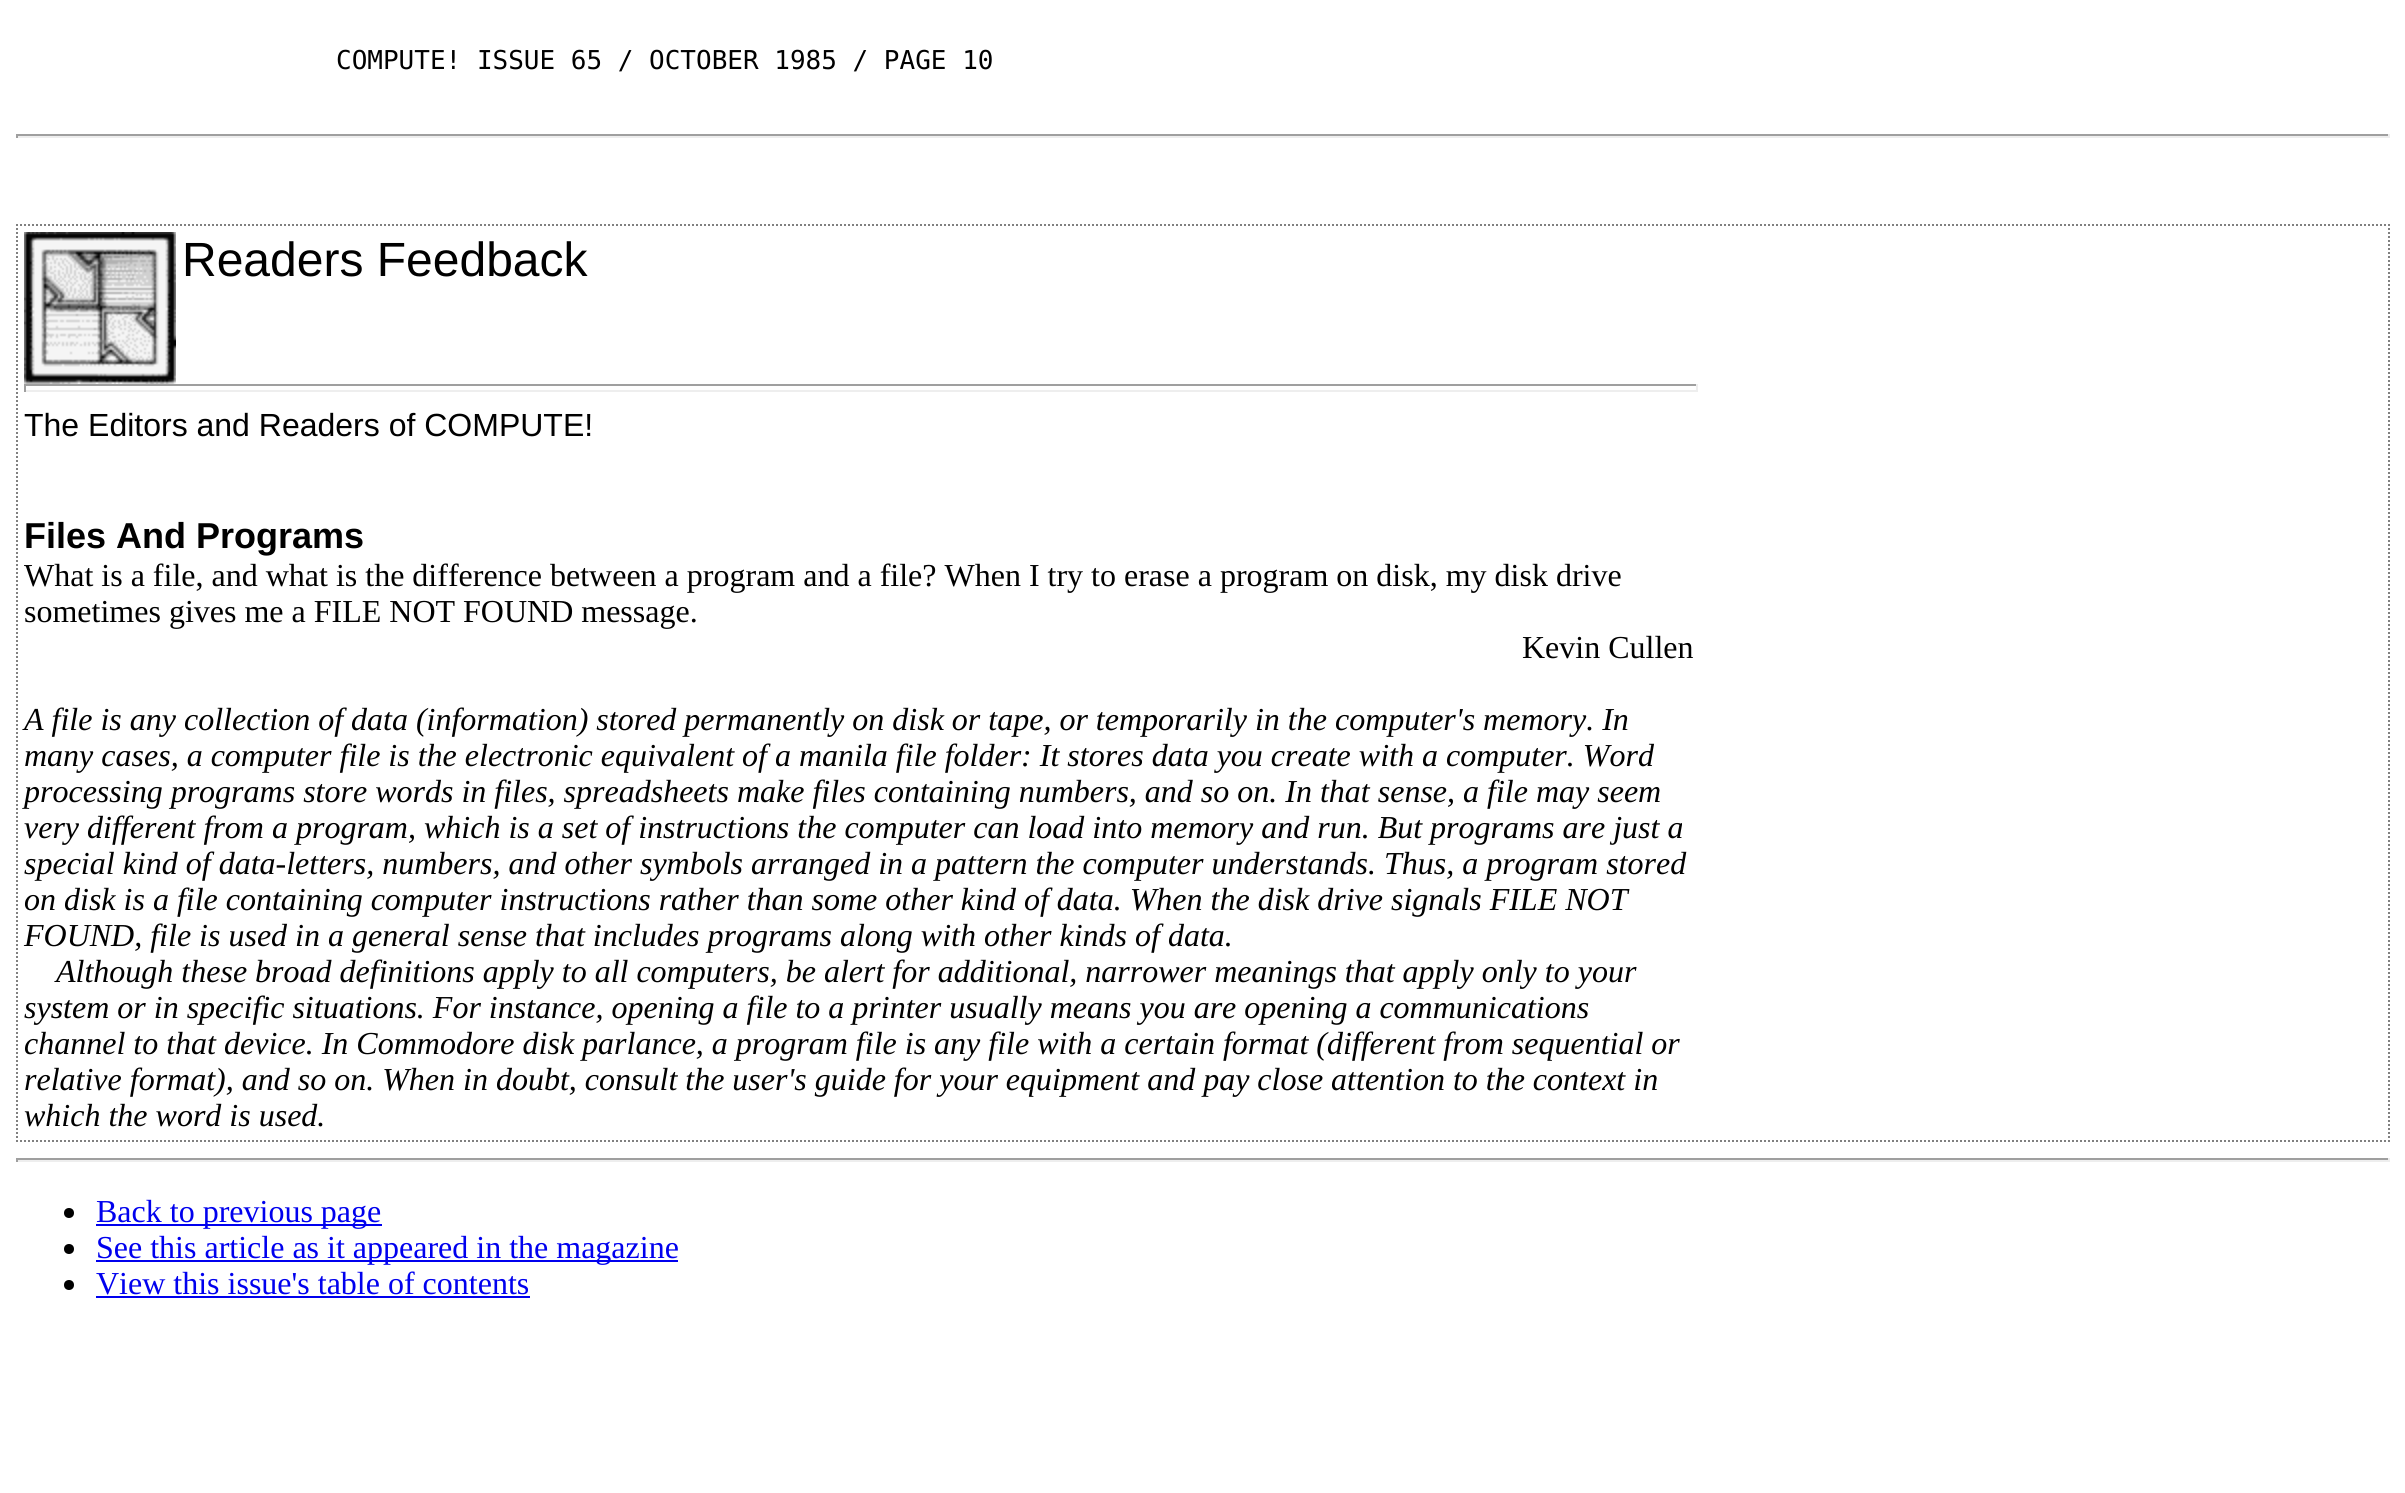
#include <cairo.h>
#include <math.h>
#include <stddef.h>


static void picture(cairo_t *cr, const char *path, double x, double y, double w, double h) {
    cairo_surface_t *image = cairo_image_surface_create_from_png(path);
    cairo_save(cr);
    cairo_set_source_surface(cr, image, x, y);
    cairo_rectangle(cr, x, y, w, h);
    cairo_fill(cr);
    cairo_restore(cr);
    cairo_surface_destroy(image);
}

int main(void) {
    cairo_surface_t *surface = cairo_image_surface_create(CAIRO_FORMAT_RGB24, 2405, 1493);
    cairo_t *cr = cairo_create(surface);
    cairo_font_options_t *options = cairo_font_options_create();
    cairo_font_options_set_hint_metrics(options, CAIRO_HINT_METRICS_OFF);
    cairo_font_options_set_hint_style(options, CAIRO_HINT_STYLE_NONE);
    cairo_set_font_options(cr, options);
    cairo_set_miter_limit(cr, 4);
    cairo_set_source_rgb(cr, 1, 1, 1);
    cairo_paint(cr);
    cairo_select_font_face(cr, "DejaVu Sans Mono", CAIRO_FONT_SLANT_NORMAL, CAIRO_FONT_WEIGHT_NORMAL);
    cairo_set_font_size(cr, 26);
    cairo_set_source_rgb(cr, 0, 0, 0);
    cairo_move_to(cr, 336, 69);
    cairo_show_text(cr, "COMPUTE! ISSUE 65 / OCTOBER 1985 / PAGE 10");
    cairo_set_source_rgb(cr, 0.624, 0.624, 0.624);
    cairo_rectangle(cr, 16, 134, 2374, 2);
    cairo_fill(cr);
    cairo_set_source_rgb(cr, 0.933, 0.933, 0.933);
    cairo_rectangle(cr, 2388, 134, 2, 4);
    cairo_fill(cr);
    cairo_rectangle(cr, 16, 136, 2374, 2);
    cairo_fill(cr);
    cairo_set_source_rgb(cr, 0.624, 0.624, 0.624);
    cairo_rectangle(cr, 16, 134, 2, 4);
    cairo_fill(cr);
    cairo_new_path(cr);
    cairo_move_to(cr, 16, 225);
    cairo_line_to(cr, 2390, 225);
    cairo_set_source_rgb(cr, 0.502, 0.502, 0.502);
    cairo_set_dash(cr, (double[]){2, 2}, 2, 0);
    cairo_stroke(cr);
    cairo_new_path(cr);
    cairo_move_to(cr, 2389, 224);
    cairo_line_to(cr, 2389, 1142);
    cairo_stroke(cr);
    cairo_new_path(cr);
    cairo_move_to(cr, 16, 1141);
    cairo_line_to(cr, 2390, 1141);
    cairo_stroke(cr);
    cairo_new_path(cr);
    cairo_move_to(cr, 17, 224);
    cairo_line_to(cr, 17, 1142);
    cairo_stroke(cr);
    picture(cr, "img1.png", 24, 232, 152, 152);
    cairo_select_font_face(cr, "Liberation Sans", CAIRO_FONT_SLANT_NORMAL, CAIRO_FONT_WEIGHT_NORMAL);
    cairo_set_font_size(cr, 48);
    cairo_set_source_rgb(cr, 0, 0, 0);
    cairo_move_to(cr, 182, 276);
    cairo_show_text(cr, "Readers Feedback");
    cairo_set_source_rgb(cr, 0.624, 0.624, 0.624);
    cairo_rectangle(cr, 24, 384, 1674, 2);
    cairo_fill(cr);
    cairo_set_source_rgb(cr, 0.933, 0.933, 0.933);
    cairo_rectangle(cr, 1696, 384, 2, 8);
    cairo_fill(cr);
    cairo_rectangle(cr, 24, 390, 1674, 2);
    cairo_fill(cr);
    cairo_set_source_rgb(cr, 0.624, 0.624, 0.624);
    cairo_rectangle(cr, 24, 384, 2, 8);
    cairo_fill(cr);
    cairo_set_font_size(cr, 32);
    cairo_set_source_rgb(cr, 0, 0, 0);
    cairo_move_to(cr, 24, 436);
    cairo_show_text(cr, "The Editors and Readers of COMPUTE!");
    cairo_select_font_face(cr, "Liberation Sans", CAIRO_FONT_SLANT_NORMAL, CAIRO_FONT_WEIGHT_BOLD);
    cairo_set_font_size(cr, 36);
    cairo_move_to(cr, 24, 548);
    cairo_show_text(cr, "Files And Programs");
    cairo_select_font_face(cr, "Liberation Serif", CAIRO_FONT_SLANT_NORMAL, CAIRO_FONT_WEIGHT_NORMAL);
    cairo_set_font_size(cr, 32);
    cairo_move_to(cr, 24, 586);
    cairo_show_text(cr, "What is a file, and what is the difference between a program and a file? When I try to erase a program on disk, my disk drive");
    cairo_move_to(cr, 24, 622);
    cairo_show_text(cr, "sometimes gives me a FILE NOT FOUND message.");
    cairo_move_to(cr, 1522, 658);
    cairo_show_text(cr, "Kevin Cullen");
    cairo_select_font_face(cr, "Liberation Serif", CAIRO_FONT_SLANT_ITALIC, CAIRO_FONT_WEIGHT_NORMAL);
    cairo_move_to(cr, 24, 730);
    cairo_show_text(cr, "A file is any collection of data (information) stored permanently on disk or tape, or temporarily in the computer's memory. In");
    cairo_move_to(cr, 24, 766);
    cairo_show_text(cr, "many cases, a computer file is the electronic equivalent of a manila file folder: It stores data you create with a computer. Word");
    cairo_move_to(cr, 24, 802);
    cairo_show_text(cr, "processing programs store words in files, spreadsheets make files containing numbers, and so on. In that sense, a file may seem");
    cairo_move_to(cr, 24, 838);
    cairo_show_text(cr, "very different from a program, which is a set of instructions the computer can load into memory and run. But programs are just a");
    cairo_move_to(cr, 24, 874);
    cairo_show_text(cr, "special kind of data-letters, numbers, and other symbols arranged in a pattern the computer understands. Thus, a program stored");
    cairo_move_to(cr, 24, 910);
    cairo_show_text(cr, "on disk is a file containing computer instructions rather than some other kind of data. When the disk drive signals FILE NOT");
    cairo_move_to(cr, 24, 946);
    cairo_show_text(cr, "FOUND, file is used in a general sense that includes programs along with other kinds of data.");
    cairo_move_to(cr, 56, 982);
    cairo_show_text(cr, "Although these broad definitions apply to all computers, be alert for additional, narrower meanings that apply only to your");
    cairo_move_to(cr, 24, 1018);
    cairo_show_text(cr, "system or in specific situations. For instance, opening a file to a printer usually means you are opening a communications");
    cairo_move_to(cr, 24, 1054);
    cairo_show_text(cr, "channel to that device. In Commodore disk parlance, a program file is any file with a certain format (different from sequential or");
    cairo_move_to(cr, 24, 1090);
    cairo_show_text(cr, "relative format), and so on. When in doubt, consult the user's guide for your equipment and pay close attention to the context in");
    cairo_move_to(cr, 24, 1126);
    cairo_show_text(cr, "which the word is used.");
    cairo_set_source_rgb(cr, 0.624, 0.624, 0.624);
    cairo_rectangle(cr, 16, 1158, 2374, 2);
    cairo_fill(cr);
    cairo_set_source_rgb(cr, 0.933, 0.933, 0.933);
    cairo_rectangle(cr, 2388, 1158, 2, 4);
    cairo_fill(cr);
    cairo_rectangle(cr, 16, 1160, 2374, 2);
    cairo_fill(cr);
    cairo_set_source_rgb(cr, 0.624, 0.624, 0.624);
    cairo_rectangle(cr, 16, 1158, 2, 4);
    cairo_fill(cr);
    cairo_set_source_rgb(cr, 0, 0, 0);
    cairo_arc(cr, 69, 1213, 5, 0, 2 * M_PI);
    cairo_fill(cr);
    cairo_set_source_rgb(cr, 0, 0, 0.933);
    cairo_rectangle(cr, 96, 1224, 286, 2);
    cairo_fill(cr);
    cairo_select_font_face(cr, "Liberation Serif", CAIRO_FONT_SLANT_NORMAL, CAIRO_FONT_WEIGHT_NORMAL);
    cairo_move_to(cr, 96, 1222);
    cairo_show_text(cr, "Back to previous page");
    cairo_set_source_rgb(cr, 0, 0, 0);
    cairo_new_path(cr);
    cairo_arc(cr, 69, 1249, 5, 0, 2 * M_PI);
    cairo_fill(cr);
    cairo_set_source_rgb(cr, 0, 0, 0.933);
    cairo_rectangle(cr, 96, 1260, 582, 2);
    cairo_fill(cr);
    cairo_move_to(cr, 96, 1258);
    cairo_show_text(cr, "See this article as it appeared in the magazine");
    cairo_set_source_rgb(cr, 0, 0, 0);
    cairo_new_path(cr);
    cairo_arc(cr, 69, 1285, 5, 0, 2 * M_PI);
    cairo_fill(cr);
    cairo_set_source_rgb(cr, 0, 0, 0.933);
    cairo_move_to(cr, 96, 1294);
    cairo_show_text(cr, "View this issue's table of contents");
    cairo_rectangle(cr, 96, 1296, 434, 2);
    cairo_fill(cr);
    cairo_surface_write_to_png(surface, "page.png");
    cairo_font_options_destroy(options);
    cairo_destroy(cr);
    cairo_surface_destroy(surface);
    return 0;
}
